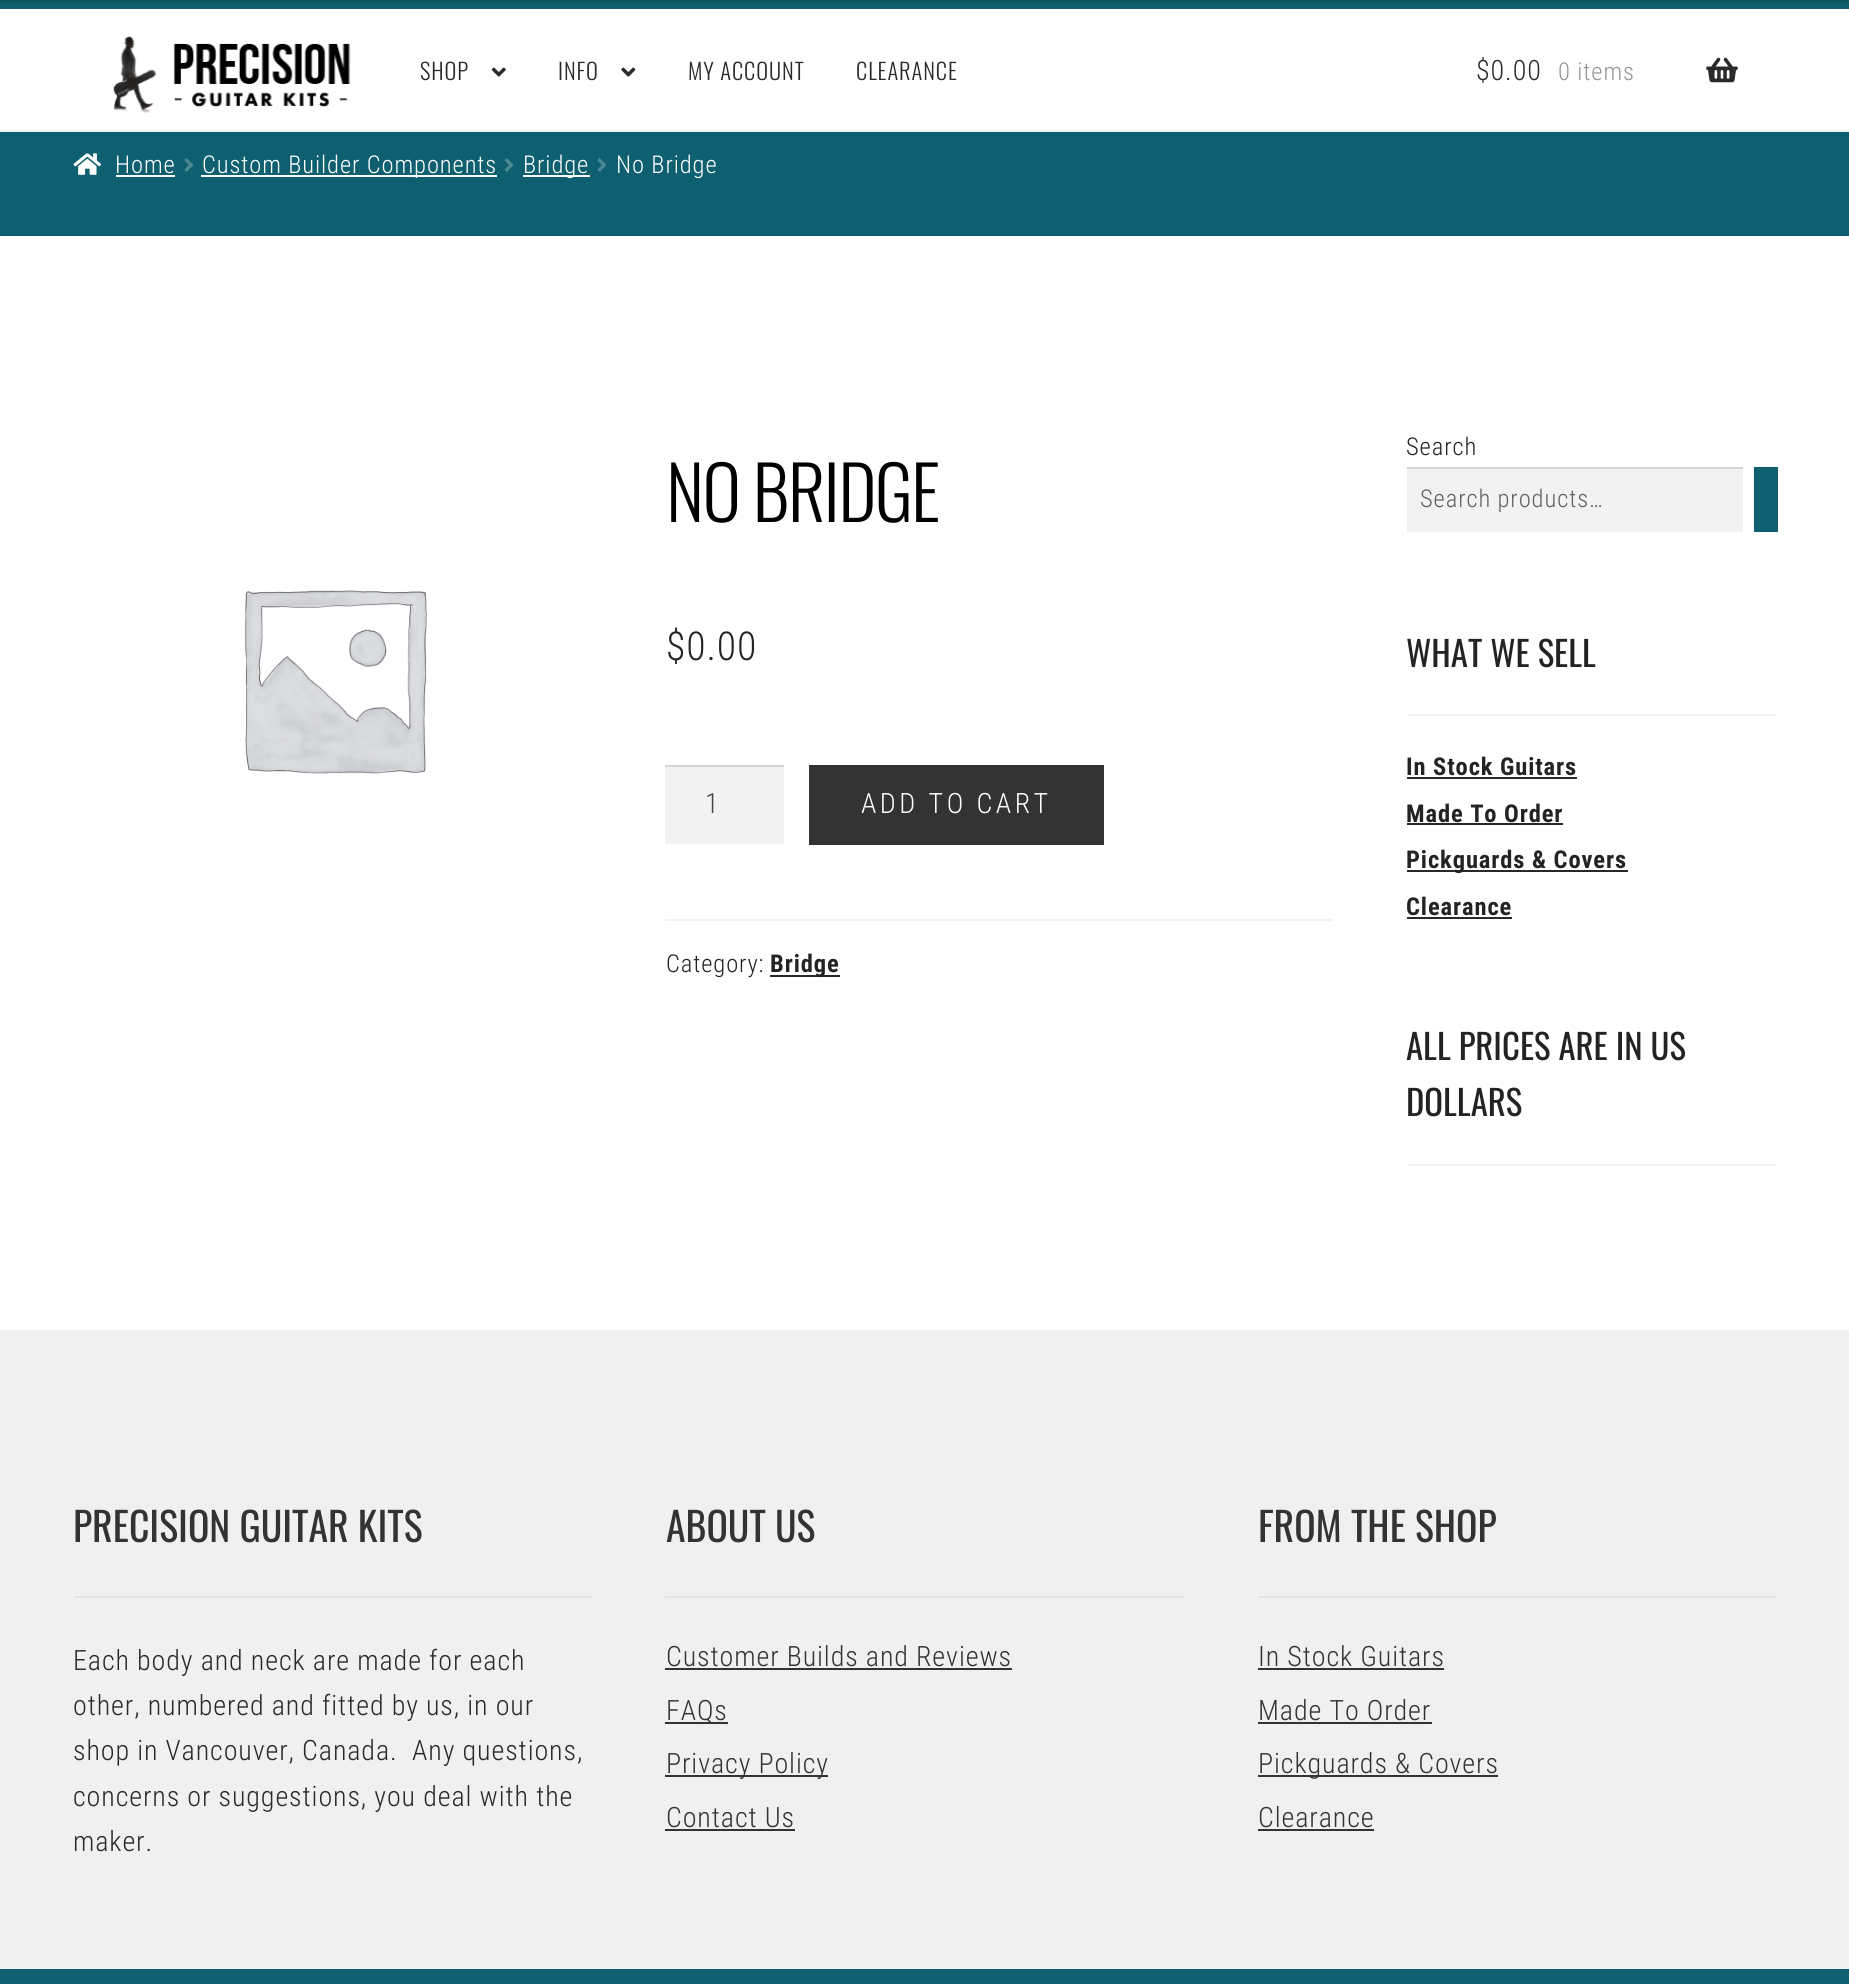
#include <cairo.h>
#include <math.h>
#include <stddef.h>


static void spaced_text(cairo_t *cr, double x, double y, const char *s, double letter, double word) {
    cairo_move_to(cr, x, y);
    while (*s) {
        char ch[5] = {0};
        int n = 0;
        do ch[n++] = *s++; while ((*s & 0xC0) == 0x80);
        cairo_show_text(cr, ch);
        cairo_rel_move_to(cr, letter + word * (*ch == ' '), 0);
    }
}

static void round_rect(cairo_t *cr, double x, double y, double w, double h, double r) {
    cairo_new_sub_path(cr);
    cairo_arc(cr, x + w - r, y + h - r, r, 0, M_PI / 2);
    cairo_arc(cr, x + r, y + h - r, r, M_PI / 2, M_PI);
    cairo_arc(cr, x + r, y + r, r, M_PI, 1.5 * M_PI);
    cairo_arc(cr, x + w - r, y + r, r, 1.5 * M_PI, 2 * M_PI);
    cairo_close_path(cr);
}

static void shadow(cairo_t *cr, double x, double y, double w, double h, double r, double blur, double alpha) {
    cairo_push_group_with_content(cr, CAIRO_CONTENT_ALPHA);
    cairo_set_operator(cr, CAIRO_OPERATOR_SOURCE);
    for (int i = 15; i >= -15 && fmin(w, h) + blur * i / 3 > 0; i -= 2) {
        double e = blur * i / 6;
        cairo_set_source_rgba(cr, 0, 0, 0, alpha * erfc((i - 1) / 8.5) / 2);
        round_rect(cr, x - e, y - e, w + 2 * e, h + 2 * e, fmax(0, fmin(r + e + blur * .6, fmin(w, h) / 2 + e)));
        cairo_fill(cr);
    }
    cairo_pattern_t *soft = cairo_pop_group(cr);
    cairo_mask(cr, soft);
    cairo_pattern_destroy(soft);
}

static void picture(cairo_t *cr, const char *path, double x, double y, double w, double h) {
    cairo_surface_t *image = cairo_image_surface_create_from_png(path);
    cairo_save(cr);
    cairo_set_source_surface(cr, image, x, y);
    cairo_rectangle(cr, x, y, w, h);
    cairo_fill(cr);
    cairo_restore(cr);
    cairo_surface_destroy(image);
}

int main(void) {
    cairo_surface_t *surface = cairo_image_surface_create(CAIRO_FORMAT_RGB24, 1849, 1984);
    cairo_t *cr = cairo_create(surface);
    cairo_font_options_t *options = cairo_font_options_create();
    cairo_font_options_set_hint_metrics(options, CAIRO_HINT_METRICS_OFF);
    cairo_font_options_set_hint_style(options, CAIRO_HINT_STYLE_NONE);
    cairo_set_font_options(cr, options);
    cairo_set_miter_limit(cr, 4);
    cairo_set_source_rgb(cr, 1, 1, 1);
    cairo_paint(cr);
    cairo_set_source_rgb(cr, 0.055, 0.376, 0.439);
    cairo_rectangle(cr, 0, 0, 1849, 9);
    cairo_fill(cr);
    cairo_set_source_rgb(cr, 0, 0, 0);
    shadow(cr, 0, -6, 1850, 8, 0, 2, 0.2);
    cairo_set_source_rgb(cr, 0.941, 0.941, 0.941);
    cairo_rectangle(cr, 0, 130, 1849, 2);
    cairo_fill(cr);
    picture(cr, "img1.png", 113, 36, 238, 77);
    cairo_select_font_face(cr, "Oswald Light", CAIRO_FONT_SLANT_NORMAL, CAIRO_FONT_WEIGHT_NORMAL);
    cairo_set_font_size(cr, 22.5);
    cairo_set_source_rgb(cr, 0.165, 0.165, 0.165);
    spaced_text(cr, 420, 80, "SHOP", 0.9, 0);
    picture(cr, "img2.png", 491, 67, 15, 10);
    spaced_text(cr, 558, 80, "INFO", 0.9, 0);
    picture(cr, "img3.png", 621, 67, 15, 10);
    spaced_text(cr, 688, 80, "MY ACCOUNT", 0.9, 0);
    spaced_text(cr, 856, 80, "CLEARANCE", 0.9, 0);
    cairo_select_font_face(cr, "Roboto Condensed Light", CAIRO_FONT_SLANT_NORMAL, CAIRO_FONT_WEIGHT_NORMAL);
    cairo_set_font_size(cr, 28);
    spaced_text(cr, 1476, 80, "$0.00", 0.9, 0);
    cairo_set_font_size(cr, 24.5);
    cairo_set_source_rgb(cr, 0.584, 0.584, 0.584);
    spaced_text(cr, 1558, 80, "0 items", 0.9, 0);
    picture(cr, "img4.png", 1706, 57, 32, 26);
    cairo_set_source_rgb(cr, 0.055, 0.376, 0.439);
    cairo_rectangle(cr, 0, 132, 1849, 104);
    cairo_fill(cr);
    picture(cr, "img5.png", 73, 153, 29, 22);
    cairo_set_source_rgb(cr, 1, 1, 1);
    spaced_text(cr, 115, 173, "Home", 0.9, 0);
    cairo_rectangle(cr, 116, 175, 59, 2);
    cairo_fill(cr);
    picture(cr, "img6.png", 184, 158, 9, 14);
    cairo_rectangle(cr, 201, 175, 296, 2);
    cairo_fill(cr);
    spaced_text(cr, 202, 173, "Custom Builder Components", 0.9, 0);
    picture(cr, "img7.png", 504, 158, 10, 14);
    cairo_rectangle(cr, 523, 175, 67, 2);
    cairo_fill(cr);
    spaced_text(cr, 523, 173, "Bridge", 0.9, 0);
    picture(cr, "img6.png", 597, 158, 9, 14);
    spaced_text(cr, 616, 173, "No Bridge", 0.9, 0);
    picture(cr, "img8.png", 244, 590, 183, 184);
    cairo_select_font_face(cr, "Oswald Light", CAIRO_FONT_SLANT_NORMAL, CAIRO_FONT_WEIGHT_NORMAL);
    cairo_set_font_size(cr, 73.5);
    cairo_set_source_rgb(cr, 0, 0, 0);
    spaced_text(cr, 666, 522, "NO BRIDGE", -1.75, 0);
    cairo_select_font_face(cr, "Roboto Condensed Light", CAIRO_FONT_SLANT_NORMAL, CAIRO_FONT_WEIGHT_NORMAL);
    cairo_set_font_size(cr, 39.75);
    cairo_set_source_rgb(cr, 0.137, 0.137, 0.137);
    spaced_text(cr, 666, 660, "$0.00", 0.9, 0);
    cairo_set_source_rgb(cr, 0.949, 0.949, 0.949);
    cairo_rectangle(cr, 665, 767, 119, 77);
    cairo_fill(cr);
    cairo_set_source_rgb(cr, 0.831, 0.831, 0.831);
    cairo_rectangle(cr, 665, 765, 119, 2);
    cairo_fill(cr);
    cairo_set_font_size(cr, 28);
    cairo_set_source_rgb(cr, 0.263, 0.271, 0.294);
    spaced_text(cr, 705, 813, "1", 0.9, 0);
    cairo_set_source_rgb(cr, 0.2, 0.2, 0.2);
    cairo_rectangle(cr, 809, 765, 295, 80);
    cairo_fill(cr);
    cairo_set_source_rgb(cr, 1, 1, 1);
    spaced_text(cr, 861, 813, "ADD TO CART", 3.5, 0);
    cairo_set_source_rgb(cr, 0.949, 0.949, 0.949);
    cairo_rectangle(cr, 665, 919, 667, 2);
    cairo_fill(cr);
    cairo_set_font_size(cr, 24.5);
    cairo_set_source_rgb(cr, 0.137, 0.137, 0.137);
    spaced_text(cr, 666, 972, "Category:", 0.9, 0);
    cairo_set_source_rgb(cr, 0.157, 0.157, 0.157);
    cairo_rectangle(cr, 770, 975, 70, 2);
    cairo_fill(cr);
    cairo_select_font_face(cr, "Roboto Condensed", CAIRO_FONT_SLANT_NORMAL, CAIRO_FONT_WEIGHT_BOLD);
    cairo_set_source_rgb(cr, 0.137, 0.137, 0.137);
    spaced_text(cr, 770, 972, "Bridge", 0.9, 0);
    cairo_select_font_face(cr, "Roboto Condensed Light", CAIRO_FONT_SLANT_NORMAL, CAIRO_FONT_WEIGHT_NORMAL);
    spaced_text(cr, 1406, 455, "Search", 0.9, 0);
    cairo_set_source_rgb(cr, 0.949, 0.949, 0.949);
    cairo_rectangle(cr, 1407, 469, 336, 63);
    cairo_fill(cr);
    cairo_set_source_rgb(cr, 0.831, 0.831, 0.831);
    cairo_rectangle(cr, 1407, 467, 336, 2);
    cairo_fill(cr);
    cairo_set_source_rgb(cr, 0.38, 0.38, 0.38);
    spaced_text(cr, 1420, 507, "Search products…", 0.9, 0);
    cairo_set_source_rgb(cr, 0.055, 0.376, 0.439);
    cairo_rectangle(cr, 1754, 467, 24, 65);
    cairo_fill(cr);
    cairo_set_source_rgb(cr, 0.949, 0.949, 0.949);
    cairo_rectangle(cr, 1407, 714, 369, 2);
    cairo_fill(cr);
    cairo_select_font_face(cr, "Oswald", CAIRO_FONT_SLANT_NORMAL, CAIRO_FONT_WEIGHT_NORMAL);
    cairo_set_font_size(cr, 34.75);
    cairo_set_source_rgb(cr, 0.137, 0.137, 0.137);
    cairo_move_to(cr, 1406, 667);
    cairo_show_text(cr, "WHAT WE SELL");
    cairo_select_font_face(cr, "Roboto Condensed", CAIRO_FONT_SLANT_NORMAL, CAIRO_FONT_WEIGHT_BOLD);
    cairo_set_font_size(cr, 24.5);
    spaced_text(cr, 1406, 775, "In Stock Guitars", 0.9, 0);
    cairo_set_source_rgb(cr, 0.157, 0.157, 0.157);
    cairo_rectangle(cr, 1407, 777, 170, 2);
    cairo_fill(cr);
    cairo_set_source_rgb(cr, 0.137, 0.137, 0.137);
    spaced_text(cr, 1406, 822, "Made To Order", 0.9, 0);
    cairo_set_source_rgb(cr, 0.157, 0.157, 0.157);
    cairo_rectangle(cr, 1407, 823, 156, 2);
    cairo_fill(cr);
    cairo_rectangle(cr, 1407, 870, 221, 2);
    cairo_fill(cr);
    cairo_set_source_rgb(cr, 0.137, 0.137, 0.137);
    spaced_text(cr, 1406, 868, "Pickguards & Covers", 0.9, 0);
    spaced_text(cr, 1406, 915, "Clearance", 0.9, 0);
    cairo_set_source_rgb(cr, 0.157, 0.157, 0.157);
    cairo_rectangle(cr, 1407, 917, 105, 2);
    cairo_fill(cr);
    cairo_set_source_rgb(cr, 0.949, 0.949, 0.949);
    cairo_rectangle(cr, 1407, 1164, 369, 2);
    cairo_fill(cr);
    cairo_select_font_face(cr, "Oswald", CAIRO_FONT_SLANT_NORMAL, CAIRO_FONT_WEIGHT_NORMAL);
    cairo_set_font_size(cr, 34.75);
    cairo_set_source_rgb(cr, 0.137, 0.137, 0.137);
    cairo_move_to(cr, 1406, 1060);
    cairo_show_text(cr, "ALL PRICES ARE IN US");
    cairo_move_to(cr, 1406, 1116);
    cairo_show_text(cr, "DOLLARS");
    cairo_set_source_rgb(cr, 0.941, 0.941, 0.941);
    cairo_rectangle(cr, 0, 1330, 1849, 639);
    cairo_fill(cr);
    cairo_set_source_rgb(cr, 0.894, 0.894, 0.894);
    cairo_rectangle(cr, 74, 1596, 518, 2);
    cairo_fill(cr);
    cairo_set_font_size(cr, 39.75);
    cairo_set_source_rgb(cr, 0.2, 0.2, 0.2);
    cairo_move_to(cr, 73, 1542);
    cairo_show_text(cr, "PRECISION GUITAR KITS");
    cairo_select_font_face(cr, "Roboto Condensed Light", CAIRO_FONT_SLANT_NORMAL, CAIRO_FONT_WEIGHT_NORMAL);
    cairo_set_font_size(cr, 28);
    cairo_set_source_rgb(cr, 0.165, 0.165, 0.165);
    spaced_text(cr, 73, 1670, "Each body and neck are made for each", 0.9, 0);
    spaced_text(cr, 73, 1715, "other, numbered and fitted by us, in our", 0.9, 0);
    spaced_text(cr, 73, 1760, "shop in Vancouver, Canada.  Any questions,", 0.9, 0);
    spaced_text(cr, 73, 1806, "concerns or suggestions, you deal with the", 0.9, 0);
    spaced_text(cr, 73, 1851, "maker.", 0.9, 0);
    cairo_set_source_rgb(cr, 0.894, 0.894, 0.894);
    cairo_rectangle(cr, 665, 1596, 520, 2);
    cairo_fill(cr);
    cairo_select_font_face(cr, "Oswald", CAIRO_FONT_SLANT_NORMAL, CAIRO_FONT_WEIGHT_NORMAL);
    cairo_set_font_size(cr, 39.75);
    cairo_set_source_rgb(cr, 0.2, 0.2, 0.2);
    cairo_move_to(cr, 666, 1542);
    cairo_show_text(cr, "ABOUT US");
    cairo_select_font_face(cr, "Roboto Condensed Light", CAIRO_FONT_SLANT_NORMAL, CAIRO_FONT_WEIGHT_NORMAL);
    cairo_set_font_size(cr, 28);
    spaced_text(cr, 666, 1666, "Customer Builds and Reviews", 0.9, 0);
    cairo_rectangle(cr, 665, 1668, 347, 2);
    cairo_fill(cr);
    cairo_rectangle(cr, 665, 1722, 63, 2);
    cairo_fill(cr);
    spaced_text(cr, 666, 1720, "FAQs", 0.9, 0);
    cairo_rectangle(cr, 665, 1775, 163, 2);
    cairo_fill(cr);
    spaced_text(cr, 666, 1773, "Privacy Policy", 0.9, 0);
    spaced_text(cr, 666, 1827, "Contact Us", 0.9, 0);
    cairo_rectangle(cr, 665, 1829, 130, 2);
    cairo_fill(cr);
    cairo_set_source_rgb(cr, 0.894, 0.894, 0.894);
    cairo_rectangle(cr, 1258, 1596, 518, 2);
    cairo_fill(cr);
    cairo_select_font_face(cr, "Oswald", CAIRO_FONT_SLANT_NORMAL, CAIRO_FONT_WEIGHT_NORMAL);
    cairo_set_font_size(cr, 39.75);
    cairo_set_source_rgb(cr, 0.2, 0.2, 0.2);
    cairo_move_to(cr, 1258, 1542);
    cairo_show_text(cr, "FROM THE SHOP");
    cairo_select_font_face(cr, "Roboto Condensed Light", CAIRO_FONT_SLANT_NORMAL, CAIRO_FONT_WEIGHT_NORMAL);
    cairo_set_font_size(cr, 28);
    spaced_text(cr, 1258, 1666, "In Stock Guitars", 0.9, 0);
    cairo_rectangle(cr, 1258, 1668, 186, 2);
    cairo_fill(cr);
    spaced_text(cr, 1258, 1720, "Made To Order", 0.9, 0);
    cairo_rectangle(cr, 1258, 1722, 174, 2);
    cairo_fill(cr);
    cairo_rectangle(cr, 1258, 1775, 240, 2);
    cairo_fill(cr);
    spaced_text(cr, 1258, 1773, "Pickguards & Covers", 0.9, 0);
    spaced_text(cr, 1258, 1827, "Clearance", 0.9, 0);
    cairo_rectangle(cr, 1258, 1829, 116, 2);
    cairo_fill(cr);
    cairo_set_source_rgb(cr, 0.055, 0.376, 0.439);
    cairo_rectangle(cr, 0, 1969, 1849, 15);
    cairo_fill(cr);
    cairo_surface_write_to_png(surface, "page.png");
    cairo_font_options_destroy(options);
    cairo_destroy(cr);
    cairo_surface_destroy(surface);
    return 0;
}
